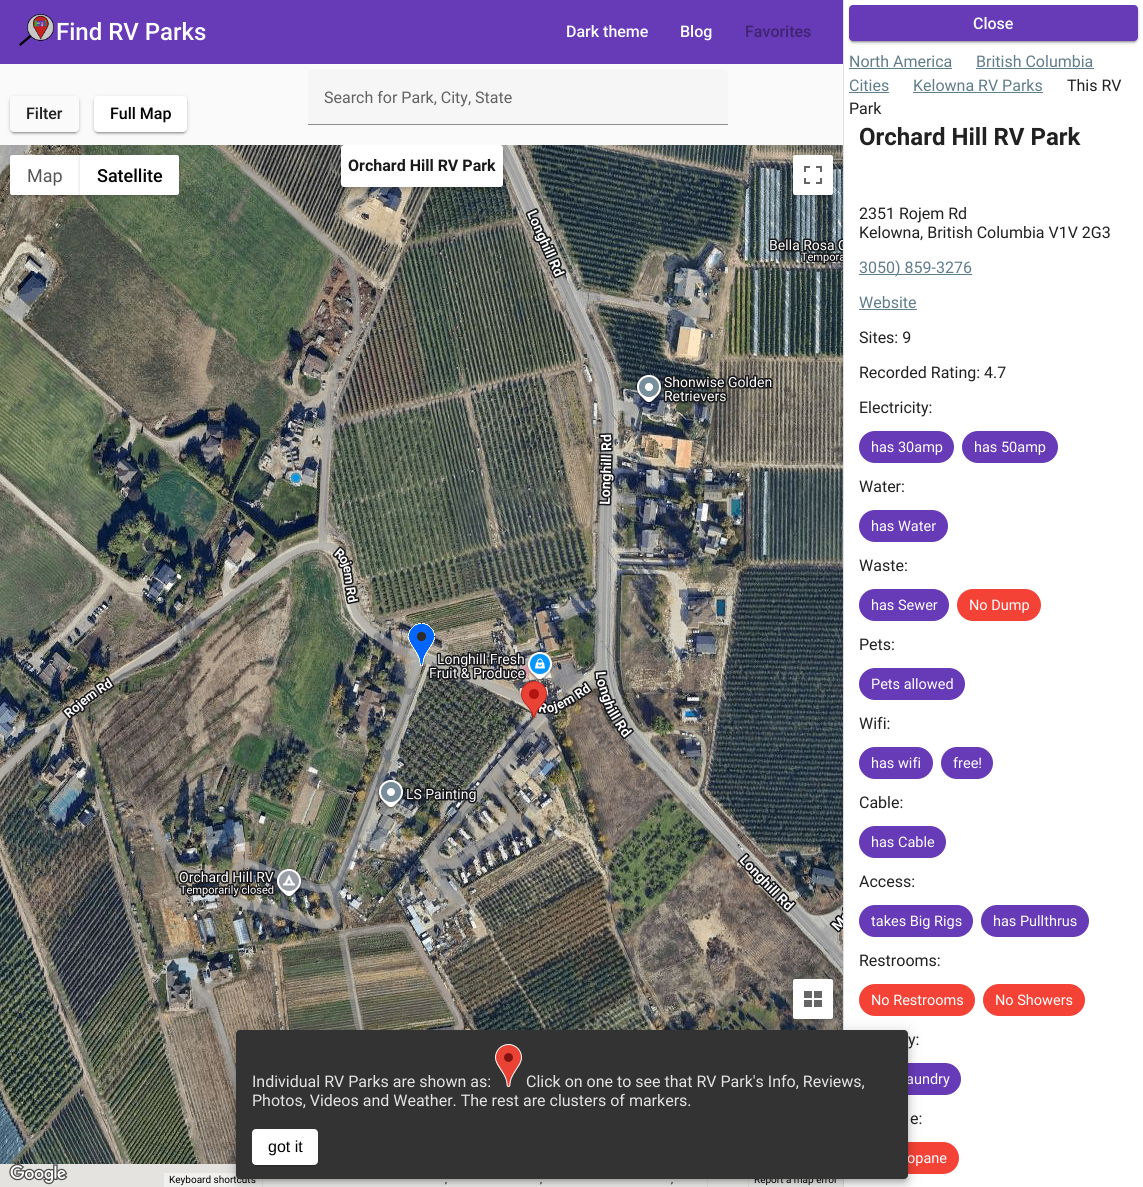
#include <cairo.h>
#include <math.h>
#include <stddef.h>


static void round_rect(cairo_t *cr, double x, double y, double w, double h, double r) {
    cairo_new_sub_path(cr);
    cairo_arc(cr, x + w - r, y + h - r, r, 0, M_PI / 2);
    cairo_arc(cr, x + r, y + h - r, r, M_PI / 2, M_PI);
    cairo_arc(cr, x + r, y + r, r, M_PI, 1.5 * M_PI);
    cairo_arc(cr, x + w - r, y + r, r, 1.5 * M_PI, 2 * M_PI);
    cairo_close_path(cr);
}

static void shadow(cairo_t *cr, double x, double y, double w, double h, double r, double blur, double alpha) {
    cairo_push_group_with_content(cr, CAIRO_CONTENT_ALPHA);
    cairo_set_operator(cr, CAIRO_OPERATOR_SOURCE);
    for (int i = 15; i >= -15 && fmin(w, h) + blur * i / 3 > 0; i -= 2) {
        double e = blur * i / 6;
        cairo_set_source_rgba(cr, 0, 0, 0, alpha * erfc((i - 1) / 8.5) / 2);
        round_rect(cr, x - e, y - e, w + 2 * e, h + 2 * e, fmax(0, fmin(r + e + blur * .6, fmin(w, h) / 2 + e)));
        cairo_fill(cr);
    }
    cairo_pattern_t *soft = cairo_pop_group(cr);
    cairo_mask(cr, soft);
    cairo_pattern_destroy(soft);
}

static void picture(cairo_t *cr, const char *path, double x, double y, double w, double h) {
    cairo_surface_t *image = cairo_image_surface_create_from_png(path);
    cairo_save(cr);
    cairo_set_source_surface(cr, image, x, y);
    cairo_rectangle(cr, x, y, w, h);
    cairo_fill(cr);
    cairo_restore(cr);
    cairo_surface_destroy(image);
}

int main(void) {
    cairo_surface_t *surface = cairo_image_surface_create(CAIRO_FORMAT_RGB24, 1143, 1187);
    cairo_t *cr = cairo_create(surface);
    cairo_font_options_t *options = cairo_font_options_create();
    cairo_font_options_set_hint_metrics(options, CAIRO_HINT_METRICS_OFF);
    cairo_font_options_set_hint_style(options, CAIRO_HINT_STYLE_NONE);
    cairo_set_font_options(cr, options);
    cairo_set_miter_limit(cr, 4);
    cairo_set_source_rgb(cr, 0.98, 0.98, 0.98);
    cairo_paint(cr);
    cairo_set_source_rgb(cr, 0.404, 0.227, 0.718);
    cairo_rectangle(cr, 0, 0, 843, 64);
    cairo_fill(cr);
    picture(cr, "img1.png", 19, 14, 35, 32);
    cairo_select_font_face(cr, "Roboto Medium", CAIRO_FONT_SLANT_NORMAL, CAIRO_FONT_WEIGHT_NORMAL);
    cairo_set_font_size(cr, 24);
    cairo_set_source_rgb(cr, 1, 1, 1);
    cairo_move_to(cr, 56, 40);
    cairo_show_text(cr, "Find RV Parks");
    cairo_set_font_size(cr, 16);
    cairo_move_to(cr, 566, 37);
    cairo_show_text(cr, "Dark theme");
    cairo_move_to(cr, 680, 37);
    cairo_show_text(cr, "Blog");
    cairo_set_source_rgb(cr, 0.251, 0.141, 0.443);
    cairo_move_to(cr, 745, 37);
    cairo_show_text(cr, "Favorites");
    cairo_set_source_rgb(cr, 0.961, 0.961, 0.961);
    cairo_new_path(cr);
    cairo_move_to(cr, 312, 69);
    cairo_line_to(cr, 724, 69);
    cairo_curve_to(cr, 726, 69, 728, 71, 728, 73);
    cairo_line_to(cr, 728, 125);
    cairo_line_to(cr, 308, 125);
    cairo_line_to(cr, 308, 73);
    cairo_curve_to(cr, 308, 71, 310, 69, 312, 69);
    cairo_close_path(cr);
    cairo_fill(cr);
    cairo_select_font_face(cr, "Roboto", CAIRO_FONT_SLANT_NORMAL, CAIRO_FONT_WEIGHT_NORMAL);
    cairo_set_source_rgb(cr, 0.384, 0.384, 0.384);
    cairo_move_to(cr, 324, 103);
    cairo_show_text(cr, "Search for Park, City, State");
    cairo_set_source_rgb(cr, 0.557, 0.557, 0.557);
    cairo_rectangle(cr, 308, 124, 420, 1);
    cairo_fill(cr);
    cairo_save(cr);
    cairo_set_fill_rule(cr, CAIRO_FILL_RULE_EVEN_ODD);
    cairo_new_path(cr);
    cairo_move_to(cr, 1, 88);
    cairo_line_to(cr, 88, 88);
    cairo_line_to(cr, 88, 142);
    cairo_line_to(cr, 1, 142);
    cairo_close_path(cr);
    cairo_move_to(cr, 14, 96);
    cairo_line_to(cr, 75, 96);
    cairo_curve_to(cr, 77, 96, 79, 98, 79, 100);
    cairo_line_to(cr, 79, 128);
    cairo_curve_to(cr, 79, 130, 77, 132, 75, 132);
    cairo_line_to(cr, 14, 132);
    cairo_curve_to(cr, 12, 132, 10, 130, 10, 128);
    cairo_line_to(cr, 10, 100);
    cairo_curve_to(cr, 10, 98, 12, 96, 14, 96);
    cairo_close_path(cr);
    cairo_clip(cr);
    cairo_set_source_rgb(cr, 0, 0, 0);
    shadow(cr, 10, 97, 69, 36, 4, 2.5, 0.12);
    cairo_restore(cr);
    cairo_save(cr);
    cairo_set_fill_rule(cr, CAIRO_FILL_RULE_EVEN_ODD);
    cairo_new_path(cr);
    cairo_move_to(cr, 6, 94);
    cairo_line_to(cr, 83, 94);
    cairo_line_to(cr, 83, 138);
    cairo_line_to(cr, 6, 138);
    cairo_close_path(cr);
    cairo_move_to(cr, 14, 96);
    cairo_line_to(cr, 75, 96);
    cairo_curve_to(cr, 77, 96, 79, 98, 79, 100);
    cairo_line_to(cr, 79, 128);
    cairo_curve_to(cr, 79, 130, 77, 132, 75, 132);
    cairo_line_to(cr, 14, 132);
    cairo_curve_to(cr, 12, 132, 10, 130, 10, 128);
    cairo_line_to(cr, 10, 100);
    cairo_curve_to(cr, 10, 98, 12, 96, 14, 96);
    cairo_close_path(cr);
    cairo_clip(cr);
    cairo_set_source_rgb(cr, 0, 0, 0);
    shadow(cr, 10, 98, 69, 36, 4, 1, 0.14);
    cairo_restore(cr);
    cairo_save(cr);
    cairo_set_fill_rule(cr, CAIRO_FILL_RULE_EVEN_ODD);
    cairo_new_path(cr);
    cairo_move_to(cr, 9, 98);
    cairo_line_to(cr, 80, 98);
    cairo_line_to(cr, 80, 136);
    cairo_line_to(cr, 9, 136);
    cairo_close_path(cr);
    cairo_move_to(cr, 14, 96);
    cairo_line_to(cr, 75, 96);
    cairo_curve_to(cr, 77, 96, 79, 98, 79, 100);
    cairo_line_to(cr, 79, 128);
    cairo_curve_to(cr, 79, 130, 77, 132, 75, 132);
    cairo_line_to(cr, 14, 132);
    cairo_curve_to(cr, 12, 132, 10, 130, 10, 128);
    cairo_line_to(cr, 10, 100);
    cairo_curve_to(cr, 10, 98, 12, 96, 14, 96);
    cairo_close_path(cr);
    cairo_clip(cr);
    cairo_set_source_rgb(cr, 0, 0, 0);
    shadow(cr, 12, 101, 65, 32, 2, 0.5, 0.2);
    cairo_restore(cr);
    cairo_select_font_face(cr, "Roboto Medium", CAIRO_FONT_SLANT_NORMAL, CAIRO_FONT_WEIGHT_NORMAL);
    cairo_set_source_rgb(cr, 0.129, 0.129, 0.129);
    cairo_move_to(cr, 26, 119);
    cairo_show_text(cr, "Filter");
    cairo_set_source_rgb(cr, 0, 0, 0);
    shadow(cr, 94, 97, 93, 36, 4, 2.5, 0.12);
    shadow(cr, 94, 98, 93, 36, 4, 1, 0.14);
    shadow(cr, 96, 101, 89, 32, 2, 0.5, 0.2);
    cairo_set_source_rgb(cr, 1, 1, 1);
    round_rect(cr, 94, 96, 93, 36, 4);
    cairo_fill(cr);
    cairo_set_source_rgb(cr, 0, 0, 0);
    cairo_move_to(cr, 110, 119);
    cairo_show_text(cr, "Full Map");
    cairo_set_source_rgb(cr, 0.898, 0.89, 0.875);
    cairo_rectangle(cr, 0, 1164, 749, 23);
    cairo_fill(cr);
    picture(cr, "img2.png", 0, 145, 200, 251);
    picture(cr, "img3.png", 200, 145, 256, 251);
    picture(cr, "img4.png", 456, 145, 256, 251);
    picture(cr, "img5.png", 712, 145, 131, 251);
    picture(cr, "img6.png", 0, 396, 200, 256);
    picture(cr, "img7.png", 200, 396, 256, 256);
    picture(cr, "img8.png", 456, 396, 256, 256);
    picture(cr, "img9.png", 712, 396, 131, 256);
    picture(cr, "img10.png", 0, 652, 200, 256);
    picture(cr, "img11.png", 200, 652, 256, 256);
    picture(cr, "img12.png", 456, 652, 256, 256);
    picture(cr, "img13.png", 712, 652, 131, 256);
    picture(cr, "img14.png", 0, 908, 200, 256);
    picture(cr, "img15.png", 200, 908, 256, 256);
    picture(cr, "img16.png", 456, 908, 256, 122);
    picture(cr, "img17.png", 712, 908, 131, 122);
    picture(cr, "img18.png", 408, 623, 27, 43);
    picture(cr, "img19.png", 521, 681, 26, 37);
    cairo_save(cr);
    cairo_rectangle(cr, 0, 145, 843, 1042);
    cairo_clip(cr);
    cairo_set_source_rgb(cr, 0, 0, 0);
    shadow(cr, 341, 147, 162, 42, 3, 3, 0.3);
    cairo_restore(cr);
    cairo_set_source_rgb(cr, 1, 1, 1);
    round_rect(cr, 342, 146, 160, 40, 2);
    cairo_fill_preserve(cr);
    cairo_stroke(cr);
    cairo_select_font_face(cr, "Roboto", CAIRO_FONT_SLANT_NORMAL, CAIRO_FONT_WEIGHT_BOLD);
    cairo_set_source_rgb(cr, 0.098, 0.098, 0.098);
    cairo_move_to(cr, 348, 171);
    cairo_show_text(cr, "Orchard Hill RV Park");
    cairo_set_source_rgb(cr, 0, 0, 0);
    shadow(cr, 794, 157, 38, 38, 1, 2, 0.3);
    cairo_set_source_rgb(cr, 1, 1, 1);
    round_rect(cr, 793, 155, 40, 40, 2);
    cairo_fill(cr);
    picture(cr, "img20.png", 804, 166, 18, 18);
    cairo_set_source_rgb(cr, 0, 0, 0);
    shadow(cr, 11, 157, 68, 38, 1, 2, 0.3);
    cairo_set_source_rgb(cr, 1, 1, 1);
    cairo_new_path(cr);
    cairo_move_to(cr, 12, 155);
    cairo_line_to(cr, 80, 155);
    cairo_line_to(cr, 80, 195);
    cairo_line_to(cr, 12, 195);
    cairo_curve_to(cr, 11, 195, 10, 194, 10, 193);
    cairo_line_to(cr, 10, 157);
    cairo_curve_to(cr, 10, 156, 11, 155, 12, 155);
    cairo_close_path(cr);
    cairo_fill(cr);
    cairo_select_font_face(cr, "Roboto", CAIRO_FONT_SLANT_NORMAL, CAIRO_FONT_WEIGHT_NORMAL);
    cairo_set_font_size(cr, 18);
    cairo_set_source_rgb(cr, 0.337, 0.337, 0.337);
    cairo_move_to(cr, 27, 182);
    cairo_show_text(cr, "Map");
    cairo_set_source_rgb(cr, 0, 0, 0);
    shadow(cr, 81, 157, 97, 38, 1, 2, 0.3);
    cairo_set_source_rgb(cr, 1, 1, 1);
    cairo_new_path(cr);
    cairo_move_to(cr, 80, 155);
    cairo_line_to(cr, 177, 155);
    cairo_curve_to(cr, 178, 155, 179, 156, 179, 157);
    cairo_line_to(cr, 179, 193);
    cairo_curve_to(cr, 179, 194, 178, 195, 177, 195);
    cairo_line_to(cr, 80, 195);
    cairo_close_path(cr);
    cairo_fill(cr);
    cairo_select_font_face(cr, "Roboto Medium", CAIRO_FONT_SLANT_NORMAL, CAIRO_FONT_WEIGHT_NORMAL);
    cairo_set_source_rgb(cr, 0, 0, 0);
    cairo_move_to(cr, 97, 182);
    cairo_show_text(cr, "Satellite");
    cairo_set_source_rgb(cr, 0, 0, 0);
    shadow(cr, 794, 981, 38, 38, 1, 2, 0.3);
    cairo_set_source_rgb(cr, 1, 1, 1);
    round_rect(cr, 793, 979, 40, 40, 2);
    cairo_fill(cr);
    picture(cr, "img21.png", 804, 991, 18, 16);
    picture(cr, "img22.png", 9, 1164, 59, 21);
    cairo_set_source_rgb(cr, 0.941, 0.941, 0.933);
    cairo_rectangle(cr, 164, 1173, 98, 14);
    cairo_fill(cr);
    cairo_select_font_face(cr, "Roboto", CAIRO_FONT_SLANT_NORMAL, CAIRO_FONT_WEIGHT_NORMAL);
    cairo_set_font_size(cr, 10);
    cairo_set_source_rgb(cr, 0, 0, 0);
    cairo_move_to(cr, 169, 1183);
    cairo_show_text(cr, "Keyboard shortcuts");
    cairo_set_source_rgb(cr, 0.941, 0.941, 0.933);
    cairo_rectangle(cr, 263, 1179, 444, 8);
    cairo_fill(cr);
    cairo_set_source_rgb(cr, 0, 0, 0);
    cairo_move_to(cr, 445, 1183);
    cairo_show_text(cr, ",");
    cairo_move_to(cr, 540, 1183);
    cairo_show_text(cr, ",");
    cairo_move_to(cr, 671, 1183);
    cairo_show_text(cr, ",");
    cairo_set_source_rgb(cr, 0.941, 0.941, 0.933);
    cairo_rectangle(cr, 708, 1179, 40, 8);
    cairo_fill(cr);
    cairo_rectangle(cr, 749, 1179, 94, 8);
    cairo_fill(cr);
    cairo_set_source_rgb(cr, 0, 0, 0);
    cairo_move_to(cr, 754, 1183);
    cairo_show_text(cr, "Report a map error");
    cairo_set_source_rgb(cr, 1, 1, 1);
    cairo_rectangle(cr, 844, 0, 299, 1187);
    cairo_fill(cr);
    cairo_set_source_rgb(cr, 0.878, 0.878, 0.878);
    cairo_rectangle(cr, 843, 0, 1, 1187);
    cairo_fill(cr);
    cairo_save(cr);
    cairo_rectangle(cr, 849, 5, 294, 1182);
    cairo_clip(cr);
    cairo_set_source_rgb(cr, 0, 0, 0);
    shadow(cr, 849, 6, 289, 36, 4, 2.5, 0.12);
    cairo_restore(cr);
    cairo_set_source_rgb(cr, 0, 0, 0);
    shadow(cr, 849, 7, 289, 36, 4, 1, 0.14);
    shadow(cr, 851, 10, 285, 32, 2, 0.5, 0.2);
    cairo_set_source_rgb(cr, 0.404, 0.227, 0.718);
    round_rect(cr, 849, 5, 289, 36, 4);
    cairo_fill(cr);
    cairo_select_font_face(cr, "Roboto Medium", CAIRO_FONT_SLANT_NORMAL, CAIRO_FONT_WEIGHT_NORMAL);
    cairo_set_font_size(cr, 16);
    cairo_set_source_rgb(cr, 1, 1, 1);
    cairo_move_to(cr, 973, 29);
    cairo_show_text(cr, "Close");
    cairo_select_font_face(cr, "Roboto", CAIRO_FONT_SLANT_NORMAL, CAIRO_FONT_WEIGHT_NORMAL);
    cairo_set_source_rgb(cr, 0.376, 0.49, 0.545);
    cairo_move_to(cr, 849, 67);
    cairo_show_text(cr, "North America");
    cairo_rectangle(cr, 849, 68, 103, 1);
    cairo_fill(cr);
    cairo_move_to(cr, 976, 67);
    cairo_show_text(cr, "British Columbia");
    cairo_rectangle(cr, 976, 68, 118, 1);
    cairo_fill(cr);
    cairo_move_to(cr, 849, 91);
    cairo_show_text(cr, "Cities");
    cairo_rectangle(cr, 849, 92, 40, 1);
    cairo_fill(cr);
    cairo_move_to(cr, 913, 91);
    cairo_show_text(cr, "Kelowna RV Parks");
    cairo_rectangle(cr, 913, 92, 130, 1);
    cairo_fill(cr);
    cairo_set_source_rgb(cr, 0.129, 0.129, 0.129);
    cairo_move_to(cr, 1067, 91);
    cairo_show_text(cr, "This RV");
    cairo_move_to(cr, 849, 114);
    cairo_show_text(cr, "Park");
    cairo_select_font_face(cr, "Roboto", CAIRO_FONT_SLANT_NORMAL, CAIRO_FONT_WEIGHT_BOLD);
    cairo_set_font_size(cr, 24);
    cairo_move_to(cr, 859, 145);
    cairo_show_text(cr, "Orchard Hill RV Park");
    cairo_select_font_face(cr, "Roboto", CAIRO_FONT_SLANT_NORMAL, CAIRO_FONT_WEIGHT_NORMAL);
    cairo_set_font_size(cr, 16);
    cairo_move_to(cr, 859, 219);
    cairo_show_text(cr, "2351 Rojem Rd");
    cairo_move_to(cr, 859, 238);
    cairo_show_text(cr, "Kelowna, British Columbia V1V 2G3");
    cairo_set_source_rgb(cr, 0.376, 0.49, 0.545);
    cairo_rectangle(cr, 859, 274, 113, 1);
    cairo_fill(cr);
    cairo_move_to(cr, 859, 273);
    cairo_show_text(cr, "3050) 859-3276");
    cairo_move_to(cr, 859, 308);
    cairo_show_text(cr, "Website");
    cairo_rectangle(cr, 859, 309, 58, 1);
    cairo_fill(cr);
    cairo_set_source_rgb(cr, 0.129, 0.129, 0.129);
    cairo_move_to(cr, 859, 343);
    cairo_show_text(cr, "Sites: 9");
    cairo_move_to(cr, 859, 378);
    cairo_show_text(cr, "Recorded Rating: 4.7");
    cairo_move_to(cr, 859, 413);
    cairo_show_text(cr, "Electricity:");
    cairo_set_source_rgb(cr, 0.404, 0.227, 0.718);
    round_rect(cr, 859, 431, 95, 32, 16);
    cairo_fill(cr);
    cairo_set_font_size(cr, 14.5);
    cairo_set_source_rgb(cr, 1, 1, 1);
    cairo_move_to(cr, 871, 452);
    cairo_show_text(cr, "has 30amp");
    cairo_set_source_rgb(cr, 0.404, 0.227, 0.718);
    round_rect(cr, 962, 431, 96, 32, 16);
    cairo_fill(cr);
    cairo_set_source_rgb(cr, 1, 1, 1);
    cairo_move_to(cr, 974, 452);
    cairo_show_text(cr, "has 50amp");
    cairo_set_font_size(cr, 16);
    cairo_set_source_rgb(cr, 0.129, 0.129, 0.129);
    cairo_move_to(cr, 859, 492);
    cairo_show_text(cr, "Water:");
    cairo_set_source_rgb(cr, 0.404, 0.227, 0.718);
    round_rect(cr, 859, 510, 89, 32, 16);
    cairo_fill(cr);
    cairo_set_font_size(cr, 14.5);
    cairo_set_source_rgb(cr, 1, 1, 1);
    cairo_move_to(cr, 871, 531);
    cairo_show_text(cr, "has Water");
    cairo_set_font_size(cr, 16);
    cairo_set_source_rgb(cr, 0.129, 0.129, 0.129);
    cairo_move_to(cr, 859, 571);
    cairo_show_text(cr, "Waste:");
    cairo_set_source_rgb(cr, 0.404, 0.227, 0.718);
    round_rect(cr, 859, 589, 90, 32, 16);
    cairo_fill(cr);
    cairo_set_font_size(cr, 14.5);
    cairo_set_source_rgb(cr, 1, 1, 1);
    cairo_move_to(cr, 871, 610);
    cairo_show_text(cr, "has Sewer");
    cairo_set_source_rgb(cr, 0.957, 0.263, 0.212);
    round_rect(cr, 957, 589, 84, 32, 16);
    cairo_fill(cr);
    cairo_set_source_rgb(cr, 1, 1, 1);
    cairo_move_to(cr, 969, 610);
    cairo_show_text(cr, "No Dump");
    cairo_set_font_size(cr, 16);
    cairo_set_source_rgb(cr, 0.129, 0.129, 0.129);
    cairo_move_to(cr, 859, 650);
    cairo_show_text(cr, "Pets:");
    cairo_set_source_rgb(cr, 0.404, 0.227, 0.718);
    round_rect(cr, 859, 668, 106, 32, 16);
    cairo_fill(cr);
    cairo_set_font_size(cr, 14.5);
    cairo_set_source_rgb(cr, 1, 1, 1);
    cairo_move_to(cr, 871, 689);
    cairo_show_text(cr, "Pets allowed");
    cairo_set_font_size(cr, 16);
    cairo_set_source_rgb(cr, 0.129, 0.129, 0.129);
    cairo_move_to(cr, 859, 729);
    cairo_show_text(cr, "Wifi:");
    cairo_set_source_rgb(cr, 0.404, 0.227, 0.718);
    round_rect(cr, 859, 747, 74, 32, 16);
    cairo_fill(cr);
    cairo_set_font_size(cr, 14.5);
    cairo_set_source_rgb(cr, 1, 1, 1);
    cairo_move_to(cr, 871, 768);
    cairo_show_text(cr, "has wifi");
    cairo_set_source_rgb(cr, 0.404, 0.227, 0.718);
    round_rect(cr, 941, 747, 52, 32, 16);
    cairo_fill(cr);
    cairo_set_source_rgb(cr, 1, 1, 1);
    cairo_move_to(cr, 953, 768);
    cairo_show_text(cr, "free!");
    cairo_set_font_size(cr, 16);
    cairo_set_source_rgb(cr, 0.129, 0.129, 0.129);
    cairo_move_to(cr, 859, 808);
    cairo_show_text(cr, "Cable:");
    cairo_set_source_rgb(cr, 0.404, 0.227, 0.718);
    round_rect(cr, 859, 826, 87, 32, 16);
    cairo_fill(cr);
    cairo_set_font_size(cr, 14.5);
    cairo_set_source_rgb(cr, 1, 1, 1);
    cairo_move_to(cr, 871, 847);
    cairo_show_text(cr, "has Cable");
    cairo_set_font_size(cr, 16);
    cairo_set_source_rgb(cr, 0.129, 0.129, 0.129);
    cairo_move_to(cr, 859, 887);
    cairo_show_text(cr, "Access:");
    cairo_set_source_rgb(cr, 0.404, 0.227, 0.718);
    round_rect(cr, 859, 905, 114, 32, 16);
    cairo_fill(cr);
    cairo_set_font_size(cr, 14.5);
    cairo_set_source_rgb(cr, 1, 1, 1);
    cairo_move_to(cr, 871, 926);
    cairo_show_text(cr, "takes Big Rigs");
    cairo_set_source_rgb(cr, 0.404, 0.227, 0.718);
    round_rect(cr, 981, 905, 108, 32, 16);
    cairo_fill(cr);
    cairo_set_source_rgb(cr, 1, 1, 1);
    cairo_move_to(cr, 993, 926);
    cairo_show_text(cr, "has Pullthrus");
    cairo_set_font_size(cr, 16);
    cairo_set_source_rgb(cr, 0.129, 0.129, 0.129);
    cairo_move_to(cr, 859, 966);
    cairo_show_text(cr, "Restrooms:");
    cairo_set_source_rgb(cr, 0.957, 0.263, 0.212);
    round_rect(cr, 859, 984, 116, 32, 16);
    cairo_fill(cr);
    cairo_set_font_size(cr, 14.5);
    cairo_set_source_rgb(cr, 1, 1, 1);
    cairo_move_to(cr, 871, 1005);
    cairo_show_text(cr, "No Restrooms");
    cairo_set_source_rgb(cr, 0.957, 0.263, 0.212);
    round_rect(cr, 983, 984, 102, 32, 16);
    cairo_fill(cr);
    cairo_set_source_rgb(cr, 1, 1, 1);
    cairo_move_to(cr, 995, 1005);
    cairo_show_text(cr, "No Showers");
    cairo_set_font_size(cr, 16);
    cairo_set_source_rgb(cr, 0.129, 0.129, 0.129);
    cairo_move_to(cr, 908, 1045);
    cairo_show_text(cr, "y:");
    cairo_set_source_rgb(cr, 0.404, 0.227, 0.718);
    round_rect(cr, 859, 1063, 102, 32, 16);
    cairo_fill(cr);
    cairo_set_font_size(cr, 14.5);
    cairo_set_source_rgb(cr, 1, 1, 1);
    cairo_move_to(cr, 906, 1084);
    cairo_show_text(cr, "aundry");
    cairo_set_font_size(cr, 16);
    cairo_set_source_rgb(cr, 0.129, 0.129, 0.129);
    cairo_move_to(cr, 910, 1124);
    cairo_show_text(cr, "e:");
    cairo_set_source_rgb(cr, 0.957, 0.263, 0.212);
    round_rect(cr, 859, 1142, 100, 32, 16);
    cairo_fill(cr);
    cairo_set_font_size(cr, 14.5);
    cairo_set_source_rgb(cr, 1, 1, 1);
    cairo_move_to(cr, 907, 1163);
    cairo_show_text(cr, "opane");
    cairo_set_source_rgb(cr, 0, 0, 0);
    shadow(cr, 236, 1031, 672, 149, 4, 9, 0.12);
    shadow(cr, 236, 1036, 672, 149, 4, 5, 0.14);
    shadow(cr, 237, 1034, 670, 147, 3, 2.5, 0.2);
    cairo_set_source_rgb(cr, 0.2, 0.2, 0.2);
    round_rect(cr, 236, 1030, 672, 149, 4);
    cairo_fill(cr);
    cairo_set_font_size(cr, 16);
    cairo_set_source_rgb(cr, 0.894, 0.894, 0.894);
    cairo_move_to(cr, 252, 1087);
    cairo_show_text(cr, "Individual RV Parks are shown as:");
    picture(cr, "img23.png", 495, 1044, 27, 43);
    cairo_move_to(cr, 526, 1087);
    cairo_show_text(cr, "Click on one to see that RV Park's Info, Reviews,");
    cairo_move_to(cr, 252, 1106);
    cairo_show_text(cr, "Photos, Videos and Weather. The rest are clusters of markers.");
    cairo_set_source_rgb(cr, 0, 0, 0);
    shadow(cr, 254, 1134, 62, 32, 2, 0.5, 0.2);
    cairo_set_source_rgb(cr, 1, 1, 1);
    round_rect(cr, 252, 1129, 66, 36, 4);
    cairo_fill(cr);
    cairo_select_font_face(cr, "Liberation Sans", CAIRO_FONT_SLANT_NORMAL, CAIRO_FONT_WEIGHT_NORMAL);
    cairo_set_source_rgb(cr, 0, 0, 0);
    cairo_move_to(cr, 268, 1152);
    cairo_show_text(cr, "got it");
    cairo_surface_write_to_png(surface, "page.png");
    cairo_font_options_destroy(options);
    cairo_destroy(cr);
    cairo_surface_destroy(surface);
    return 0;
}
